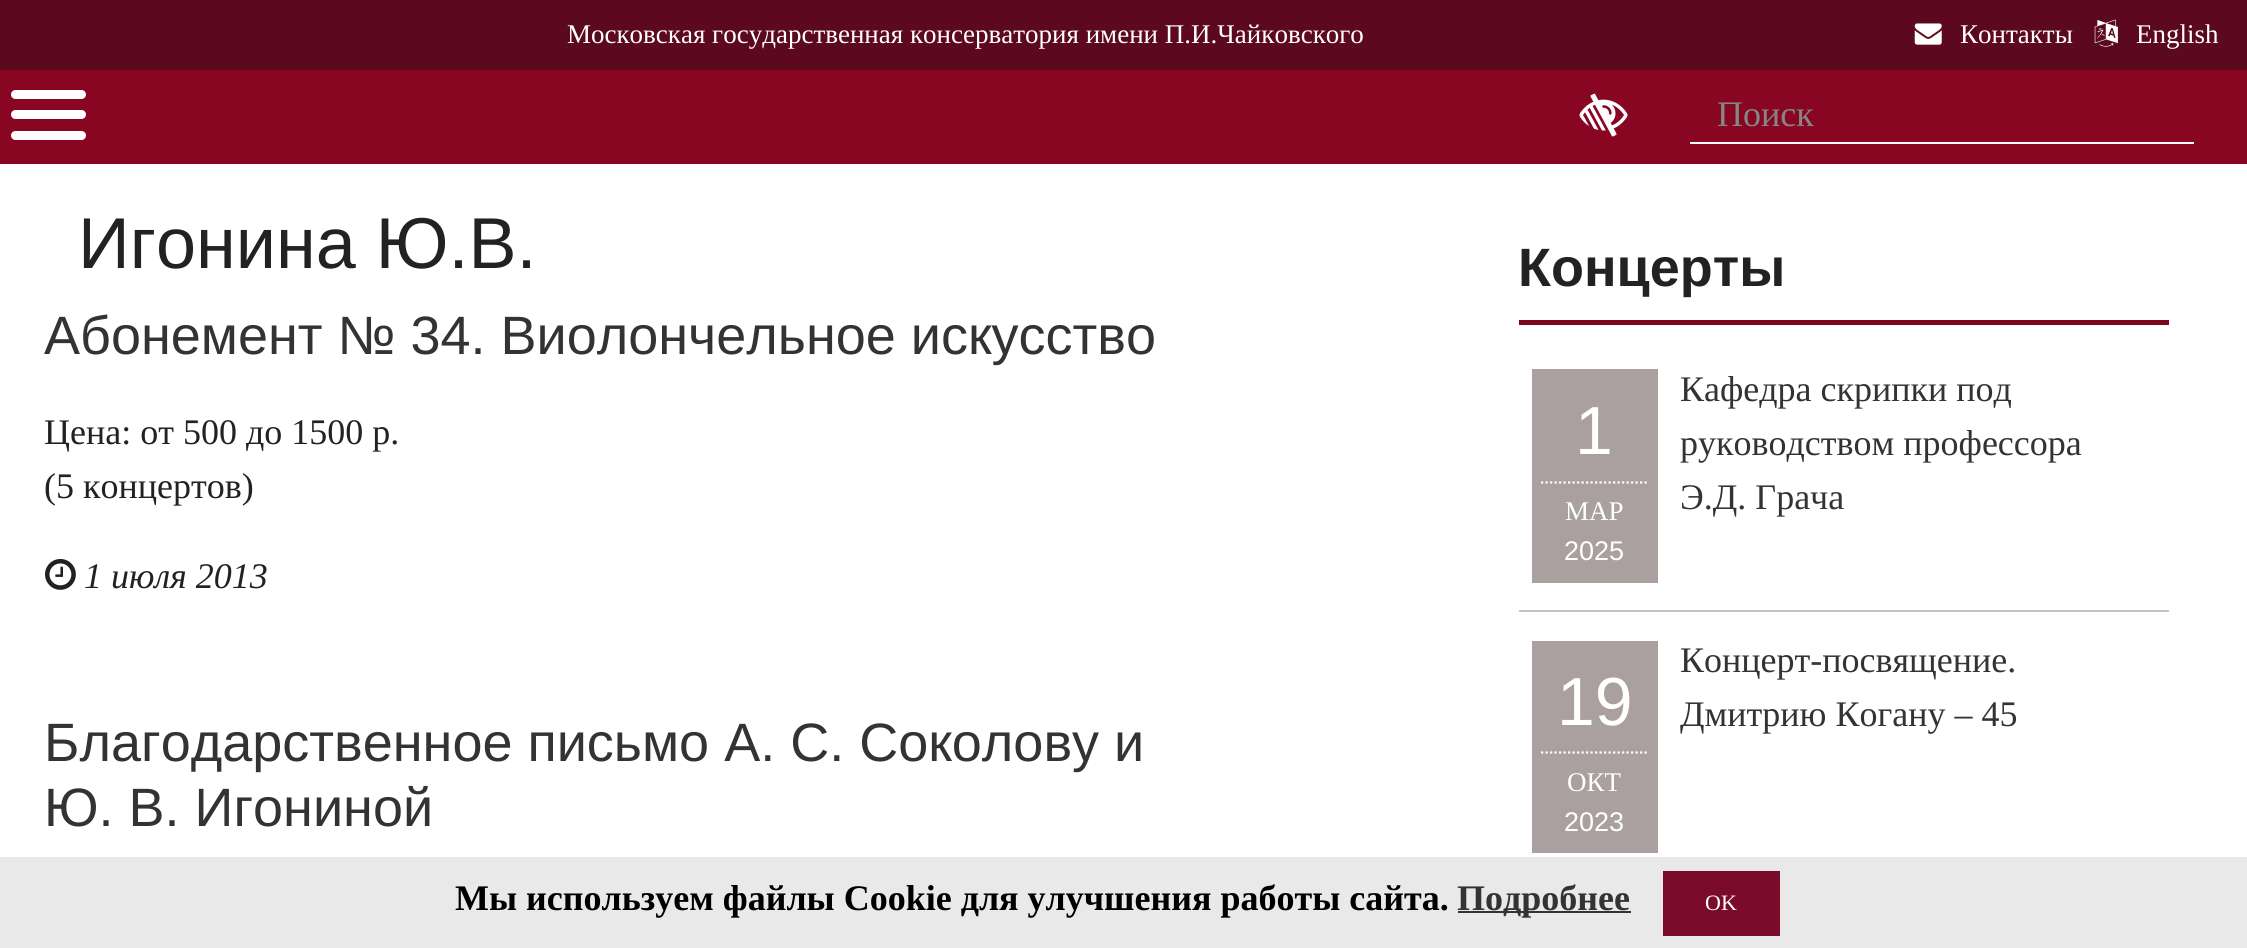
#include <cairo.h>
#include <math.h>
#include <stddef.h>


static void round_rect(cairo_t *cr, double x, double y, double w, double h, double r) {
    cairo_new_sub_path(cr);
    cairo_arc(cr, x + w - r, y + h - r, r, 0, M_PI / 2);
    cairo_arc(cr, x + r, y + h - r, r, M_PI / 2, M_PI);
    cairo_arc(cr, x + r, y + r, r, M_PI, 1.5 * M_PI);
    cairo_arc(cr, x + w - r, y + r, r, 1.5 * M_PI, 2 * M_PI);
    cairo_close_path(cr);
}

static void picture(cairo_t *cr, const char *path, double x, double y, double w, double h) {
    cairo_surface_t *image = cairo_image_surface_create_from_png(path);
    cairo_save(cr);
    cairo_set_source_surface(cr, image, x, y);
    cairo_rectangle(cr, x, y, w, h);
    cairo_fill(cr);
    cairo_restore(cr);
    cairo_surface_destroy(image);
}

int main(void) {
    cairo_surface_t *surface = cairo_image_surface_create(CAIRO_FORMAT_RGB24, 2247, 948);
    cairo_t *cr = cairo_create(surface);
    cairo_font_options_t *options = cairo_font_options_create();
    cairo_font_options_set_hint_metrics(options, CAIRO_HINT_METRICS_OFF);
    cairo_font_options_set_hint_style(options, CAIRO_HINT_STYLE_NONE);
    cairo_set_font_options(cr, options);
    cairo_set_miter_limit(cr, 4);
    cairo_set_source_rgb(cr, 1, 1, 1);
    cairo_paint(cr);
    cairo_set_source_rgb(cr, 0.361, 0.035, 0.122);
    cairo_rectangle(cr, 0, 0, 2247, 70);
    cairo_fill(cr);
    cairo_select_font_face(cr, "Liberation Serif", CAIRO_FONT_SLANT_NORMAL, CAIRO_FONT_WEIGHT_NORMAL);
    cairo_set_font_size(cr, 27);
    cairo_set_source_rgb(cr, 1, 1, 1);
    cairo_move_to(cr, 567, 43);
    cairo_show_text(cr, "Московская государственная консерватория имени П.И.Чайковского");
    picture(cr, "img1.png", 1914, 23, 28, 22);
    cairo_move_to(cr, 1960, 43);
    cairo_show_text(cr, "Контакты");
    picture(cr, "img2.png", 2094, 19, 24, 28);
    cairo_move_to(cr, 2136, 43);
    cairo_show_text(cr, "English");
    cairo_set_source_rgb(cr, 0.533, 0.027, 0.129);
    cairo_rectangle(cr, 0, 70, 2247, 94);
    cairo_fill(cr);
    cairo_set_source_rgb(cr, 1, 1, 1);
    round_rect(cr, 11, 90, 75, 9, 4.5);
    cairo_fill(cr);
    round_rect(cr, 11, 110, 75, 9, 4.5);
    cairo_fill(cr);
    round_rect(cr, 11, 131, 75, 9, 4.5);
    cairo_fill(cr);
    picture(cr, "img3.png", 1579, 93, 49, 44);
    cairo_set_source_rgb(cr, 0.973, 0.973, 0.973);
    cairo_rectangle(cr, 1690, 142, 504, 2);
    cairo_fill(cr);
    cairo_set_font_size(cr, 36);
    cairo_set_source_rgb(cr, 0.525, 0.525, 0.525);
    cairo_move_to(cr, 1717, 126);
    cairo_show_text(cr, "Поиск");
    cairo_select_font_face(cr, "Liberation Sans", CAIRO_FONT_SLANT_NORMAL, CAIRO_FONT_WEIGHT_NORMAL);
    cairo_set_font_size(cr, 72);
    cairo_set_source_rgb(cr, 0.133, 0.133, 0.133);
    cairo_move_to(cr, 78, 268);
    cairo_show_text(cr, "Игонина Ю.В.");
    cairo_set_font_size(cr, 54);
    cairo_set_source_rgb(cr, 0.2, 0.2, 0.2);
    cairo_move_to(cr, 44, 354);
    cairo_show_text(cr, "Абонемент № 34. Виолончельное искусство");
    cairo_select_font_face(cr, "Liberation Serif", CAIRO_FONT_SLANT_NORMAL, CAIRO_FONT_WEIGHT_NORMAL);
    cairo_set_font_size(cr, 36);
    cairo_set_source_rgb(cr, 0.133, 0.133, 0.133);
    cairo_move_to(cr, 44, 444);
    cairo_show_text(cr, "Цена: от 500 до 1500 р.");
    cairo_move_to(cr, 44, 498);
    cairo_show_text(cr, "(5 концертов)");
    picture(cr, "img4.png", 45, 559, 31, 31);
    cairo_select_font_face(cr, "Liberation Serif", CAIRO_FONT_SLANT_ITALIC, CAIRO_FONT_WEIGHT_NORMAL);
    cairo_move_to(cr, 84, 588);
    cairo_show_text(cr, "1 июля 2013");
    cairo_select_font_face(cr, "Liberation Sans", CAIRO_FONT_SLANT_NORMAL, CAIRO_FONT_WEIGHT_NORMAL);
    cairo_set_font_size(cr, 54);
    cairo_set_source_rgb(cr, 0.2, 0.2, 0.2);
    cairo_move_to(cr, 44, 761);
    cairo_show_text(cr, "Благодарственное письмо А. С. Соколову и");
    cairo_move_to(cr, 44, 826);
    cairo_show_text(cr, "Ю. В. Игониной");
    cairo_select_font_face(cr, "Liberation Sans", CAIRO_FONT_SLANT_NORMAL, CAIRO_FONT_WEIGHT_BOLD);
    cairo_set_source_rgb(cr, 0.133, 0.133, 0.133);
    cairo_move_to(cr, 1518, 286);
    cairo_show_text(cr, "Концерты");
    cairo_set_source_rgb(cr, 0.478, 0.024, 0.118);
    cairo_rectangle(cr, 1519, 320, 650, 5);
    cairo_fill(cr);
    cairo_set_source_rgb(cr, 0.769, 0.769, 0.769);
    cairo_rectangle(cr, 1519, 610, 650, 2);
    cairo_fill(cr);
    cairo_set_source_rgb(cr, 0.667, 0.627, 0.627);
    cairo_rectangle(cr, 1532, 369, 126, 214);
    cairo_fill(cr);
    cairo_new_path(cr);
    cairo_move_to(cr, 1541, 482.5);
    cairo_line_to(cr, 1647, 482.5);
    cairo_set_source_rgb(cr, 1, 1, 1);
    cairo_set_line_width(cr, 2.2);
    cairo_set_dash(cr, (double[]){2.25, 2.25}, 2, 0);
    cairo_stroke(cr);
    cairo_select_font_face(cr, "Liberation Sans", CAIRO_FONT_SLANT_NORMAL, CAIRO_FONT_WEIGHT_NORMAL);
    cairo_set_font_size(cr, 68);
    cairo_move_to(cr, 1575, 454);
    cairo_show_text(cr, "1");
    cairo_select_font_face(cr, "Liberation Serif", CAIRO_FONT_SLANT_NORMAL, CAIRO_FONT_WEIGHT_NORMAL);
    cairo_set_font_size(cr, 27);
    cairo_move_to(cr, 1565, 520);
    cairo_show_text(cr, "МАР");
    cairo_select_font_face(cr, "Liberation Sans", CAIRO_FONT_SLANT_NORMAL, CAIRO_FONT_WEIGHT_NORMAL);
    cairo_move_to(cr, 1564, 560);
    cairo_show_text(cr, "2025");
    cairo_select_font_face(cr, "Liberation Serif", CAIRO_FONT_SLANT_NORMAL, CAIRO_FONT_WEIGHT_NORMAL);
    cairo_set_font_size(cr, 36);
    cairo_set_source_rgb(cr, 0.2, 0.2, 0.2);
    cairo_move_to(cr, 1680, 401);
    cairo_show_text(cr, "Кафедра скрипки под");
    cairo_move_to(cr, 1680, 455);
    cairo_show_text(cr, "руководством профессора");
    cairo_move_to(cr, 1680, 509);
    cairo_show_text(cr, "Э.Д. Грача");
    cairo_set_source_rgb(cr, 0.667, 0.627, 0.627);
    cairo_rectangle(cr, 1532, 641, 126, 212);
    cairo_fill(cr);
    cairo_new_path(cr);
    cairo_move_to(cr, 1541, 752.5);
    cairo_line_to(cr, 1647, 752.5);
    cairo_set_source_rgb(cr, 1, 1, 1);
    cairo_stroke(cr);
    cairo_select_font_face(cr, "Liberation Sans", CAIRO_FONT_SLANT_NORMAL, CAIRO_FONT_WEIGHT_NORMAL);
    cairo_set_font_size(cr, 68);
    cairo_move_to(cr, 1557, 725);
    cairo_show_text(cr, "19");
    cairo_select_font_face(cr, "Liberation Serif", CAIRO_FONT_SLANT_NORMAL, CAIRO_FONT_WEIGHT_NORMAL);
    cairo_set_font_size(cr, 27);
    cairo_move_to(cr, 1567, 791);
    cairo_show_text(cr, "ОКТ");
    cairo_select_font_face(cr, "Liberation Sans", CAIRO_FONT_SLANT_NORMAL, CAIRO_FONT_WEIGHT_NORMAL);
    cairo_move_to(cr, 1564, 831);
    cairo_show_text(cr, "2023");
    cairo_select_font_face(cr, "Liberation Serif", CAIRO_FONT_SLANT_NORMAL, CAIRO_FONT_WEIGHT_NORMAL);
    cairo_set_font_size(cr, 36);
    cairo_set_source_rgb(cr, 0.2, 0.2, 0.2);
    cairo_move_to(cr, 1680, 672);
    cairo_show_text(cr, "Концерт-посвящение.");
    cairo_move_to(cr, 1680, 726);
    cairo_show_text(cr, "Дмитрию Когану – 45");
    cairo_set_source_rgb(cr, 0.914, 0.914, 0.914);
    cairo_rectangle(cr, 0, 857, 2247, 91);
    cairo_fill(cr);
    cairo_select_font_face(cr, "Liberation Serif", CAIRO_FONT_SLANT_NORMAL, CAIRO_FONT_WEIGHT_BOLD);
    cairo_set_source_rgb(cr, 0, 0, 0);
    cairo_move_to(cr, 455, 910);
    cairo_show_text(cr, "Мы используем файлы Cookie для улучшения работы сайта.");
    cairo_set_source_rgb(cr, 0.2, 0.2, 0.2);
    cairo_rectangle(cr, 1458, 911, 173, 2);
    cairo_fill(cr);
    cairo_move_to(cr, 1457, 910);
    cairo_show_text(cr, "Подробнее");
    cairo_set_source_rgb(cr, 0.482, 0.047, 0.161);
    cairo_rectangle(cr, 1663, 871, 117, 65);
    cairo_fill(cr);
    cairo_select_font_face(cr, "Liberation Serif", CAIRO_FONT_SLANT_NORMAL, CAIRO_FONT_WEIGHT_NORMAL);
    cairo_set_font_size(cr, 22);
    cairo_set_source_rgb(cr, 1, 1, 1);
    cairo_move_to(cr, 1705, 910);
    cairo_show_text(cr, "OK");
    cairo_surface_write_to_png(surface, "page.png");
    cairo_font_options_destroy(options);
    cairo_destroy(cr);
    cairo_surface_destroy(surface);
    return 0;
}
